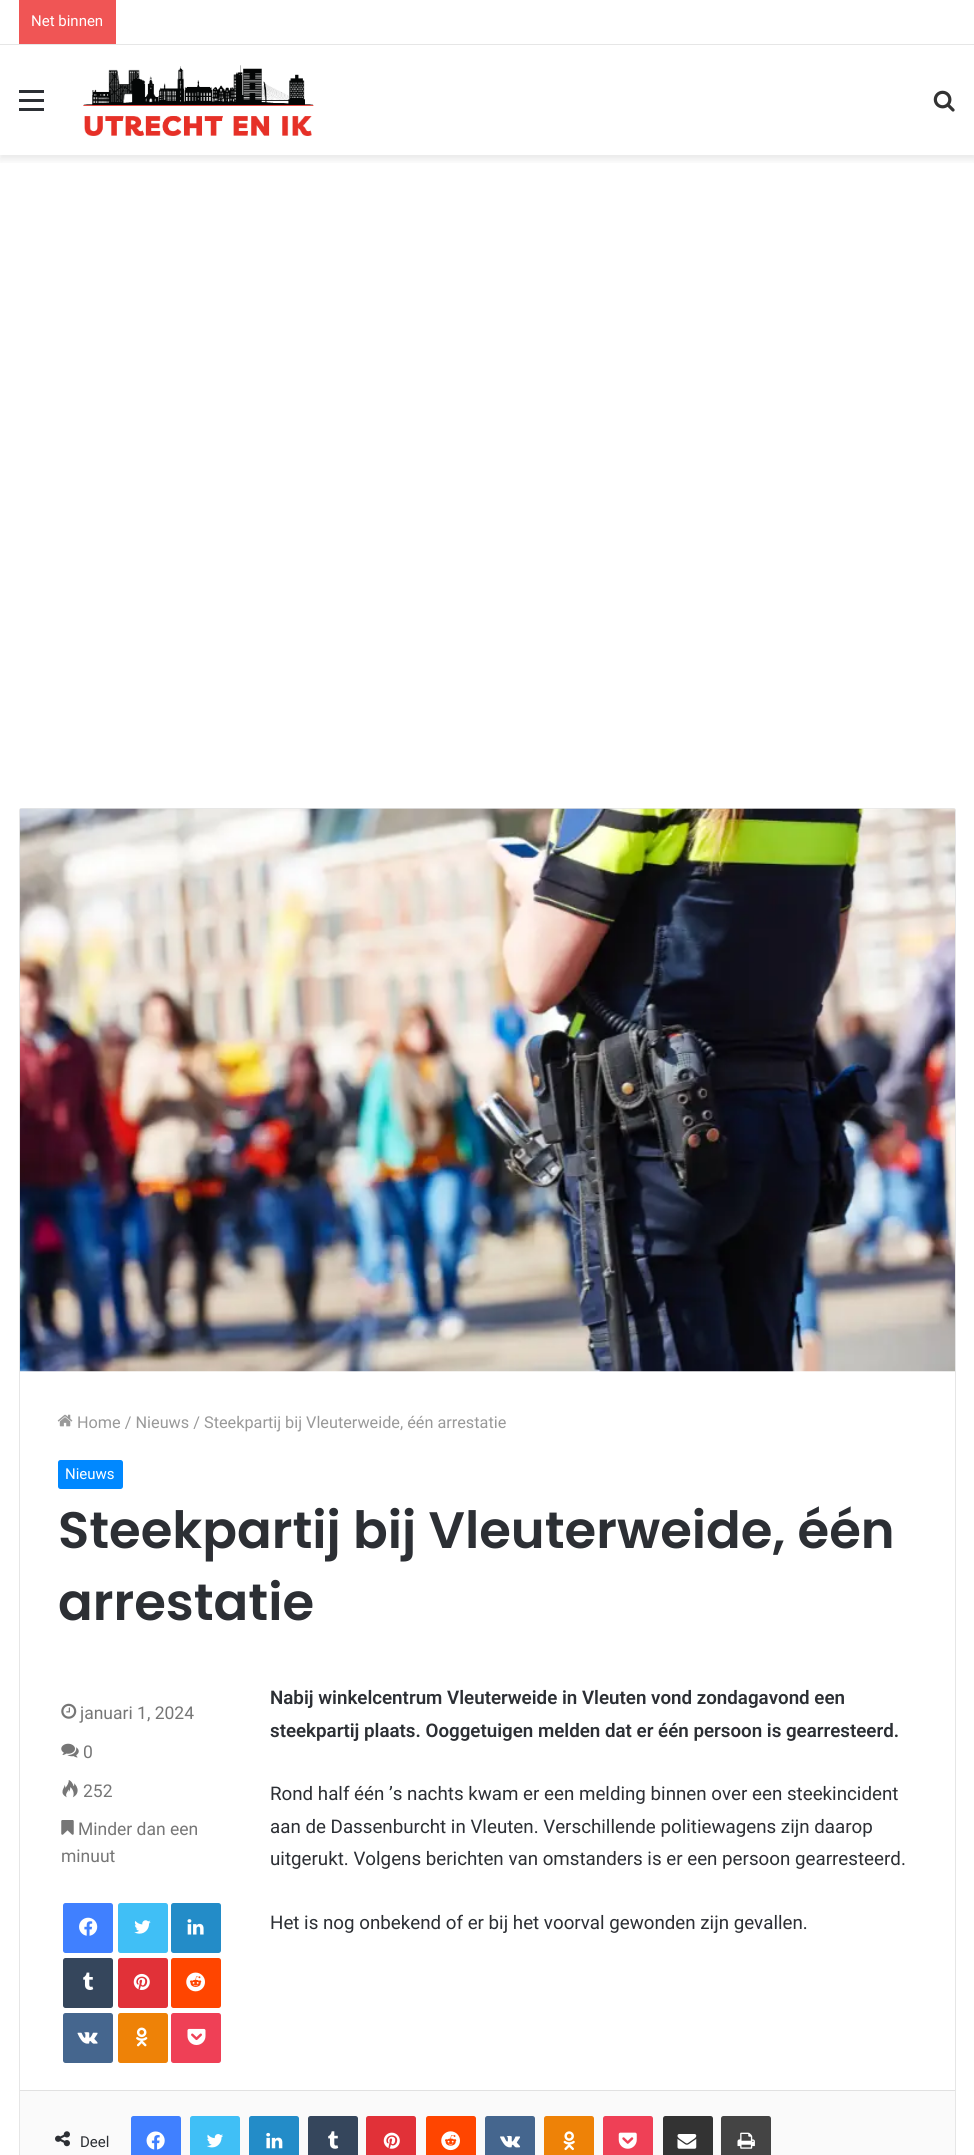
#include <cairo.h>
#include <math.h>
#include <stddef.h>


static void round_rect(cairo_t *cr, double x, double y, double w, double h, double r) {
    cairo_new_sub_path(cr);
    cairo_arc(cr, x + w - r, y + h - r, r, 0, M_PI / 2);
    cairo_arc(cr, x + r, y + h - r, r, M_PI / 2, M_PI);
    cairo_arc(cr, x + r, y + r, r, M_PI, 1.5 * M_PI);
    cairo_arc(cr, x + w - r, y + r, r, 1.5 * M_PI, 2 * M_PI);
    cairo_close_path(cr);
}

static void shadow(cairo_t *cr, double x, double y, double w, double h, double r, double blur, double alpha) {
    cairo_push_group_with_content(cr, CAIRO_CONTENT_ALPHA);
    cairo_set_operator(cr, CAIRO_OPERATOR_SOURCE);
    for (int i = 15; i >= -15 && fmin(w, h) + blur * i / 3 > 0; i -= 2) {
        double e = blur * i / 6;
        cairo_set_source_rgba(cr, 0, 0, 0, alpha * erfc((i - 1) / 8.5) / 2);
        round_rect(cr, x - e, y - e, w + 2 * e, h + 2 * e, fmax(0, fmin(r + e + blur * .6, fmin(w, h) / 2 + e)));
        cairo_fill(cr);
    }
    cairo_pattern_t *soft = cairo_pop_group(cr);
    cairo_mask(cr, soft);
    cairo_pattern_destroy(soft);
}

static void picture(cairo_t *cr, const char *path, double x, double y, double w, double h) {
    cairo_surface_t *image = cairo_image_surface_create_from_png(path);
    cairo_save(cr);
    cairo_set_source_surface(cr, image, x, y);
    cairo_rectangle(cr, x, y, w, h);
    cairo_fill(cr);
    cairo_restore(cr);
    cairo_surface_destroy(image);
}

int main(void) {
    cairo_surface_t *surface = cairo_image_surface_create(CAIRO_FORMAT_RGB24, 974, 2155);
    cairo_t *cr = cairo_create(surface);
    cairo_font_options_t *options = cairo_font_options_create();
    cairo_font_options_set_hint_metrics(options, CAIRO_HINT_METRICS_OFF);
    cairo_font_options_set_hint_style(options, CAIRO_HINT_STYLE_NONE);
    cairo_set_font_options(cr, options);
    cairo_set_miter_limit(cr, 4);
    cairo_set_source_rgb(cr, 1, 1, 1);
    cairo_paint(cr);
    cairo_save(cr);
    cairo_rectangle(cr, 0, 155, 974, 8);
    cairo_clip(cr);
    cairo_set_source_rgb(cr, 0, 0, 0);
    shadow(cr, 0, 49, 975, 110, 0, 4.5, 0.1);
    cairo_restore(cr);
    cairo_set_source_rgb(cr, 1, 1, 1);
    cairo_rectangle(cr, 6, 43, 963, 1);
    cairo_fill(cr);
    cairo_set_source_rgb(cr, 0.902, 0.902, 0.902);
    cairo_rectangle(cr, 0, 44, 974, 1);
    cairo_fill(cr);
    cairo_set_source_rgb(cr, 0.941, 0.333, 0.333);
    cairo_rectangle(cr, 19, 0, 97, 44);
    cairo_fill(cr);
    cairo_select_font_face(cr, "Roboto", CAIRO_FONT_SLANT_NORMAL, CAIRO_FONT_WEIGHT_NORMAL);
    cairo_set_font_size(cr, 15);
    cairo_set_source_rgb(cr, 1, 1, 1);
    cairo_move_to(cr, 31, 26);
    cairo_show_text(cr, "Net binnen");
    cairo_set_source_rgb(cr, 0.173, 0.184, 0.204);
    cairo_rectangle(cr, 19, 99, 25, 3);
    cairo_fill(cr);
    cairo_rectangle(cr, 19, 90, 25, 3);
    cairo_fill(cr);
    cairo_rectangle(cr, 19, 108, 25, 3);
    cairo_fill(cr);
    picture(cr, "img1.png", 83, 65, 231, 71);
    picture(cr, "img2.png", 933, 90, 22, 22);
    round_rect(cr, 19.5, 808.5, 936, 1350, 2);
    cairo_set_source_rgb(cr, 0.902, 0.902, 0.902);
    cairo_set_line_width(cr, 1);
    cairo_stroke(cr);
    picture(cr, "img3.png", 20, 808, 935, 564);
    picture(cr, "img4.png", 57, 1414, 16, 13);
    cairo_set_font_size(cr, 16.25);
    cairo_set_source_rgb(cr, 0.6, 0.6, 0.6);
    cairo_move_to(cr, 77, 1428);
    cairo_show_text(cr, "Home / Nieuws / Steekpartij bij Vleuterweide, één arrestatie");
    cairo_set_source_rgb(cr, 0, 0.533, 1);
    round_rect(cr, 58, 1460, 65, 29, 2.5);
    cairo_fill(cr);
    cairo_set_font_size(cr, 15);
    cairo_set_source_rgb(cr, 1, 1, 1);
    cairo_move_to(cr, 65, 1479);
    cairo_show_text(cr, "Nieuws");
    cairo_select_font_face(cr, "Poppins SemiBold", CAIRO_FONT_SLANT_NORMAL, CAIRO_FONT_WEIGHT_NORMAL);
    cairo_set_font_size(cr, 51.25);
    cairo_set_source_rgb(cr, 0.173, 0.184, 0.204);
    cairo_move_to(cr, 58, 1548);
    cairo_show_text(cr, "Steekpartij bij Vleuterweide, één");
    cairo_move_to(cr, 58, 1620);
    cairo_show_text(cr, "arrestatie");
    picture(cr, "img5.png", 61, 1703, 16, 16);
    cairo_select_font_face(cr, "Roboto", CAIRO_FONT_SLANT_NORMAL, CAIRO_FONT_WEIGHT_NORMAL);
    cairo_set_font_size(cr, 17.5);
    cairo_set_source_rgb(cr, 0.463, 0.463, 0.463);
    cairo_move_to(cr, 80, 1719);
    cairo_show_text(cr, "januari 1, 2024");
    picture(cr, "img6.png", 61, 1743, 18, 15);
    cairo_move_to(cr, 83, 1758);
    cairo_show_text(cr, "0");
    picture(cr, "img7.png", 62, 1780, 16, 18);
    cairo_move_to(cr, 83, 1797);
    cairo_show_text(cr, "252");
    picture(cr, "img8.png", 61, 1820, 13, 15);
    cairo_move_to(cr, 78, 1835);
    cairo_show_text(cr, "Minder dan een");
    cairo_move_to(cr, 61, 1862);
    cairo_show_text(cr, "minuut");
    cairo_set_source_rgb(cr, 0.251, 0.502, 1);
    round_rect(cr, 63, 1903, 50, 50, 2.5);
    cairo_fill(cr);
    picture(cr, "img9.png", 79, 1917, 19, 19);
    cairo_set_source_rgb(cr, 0.251, 0.749, 0.961);
    round_rect(cr, 118, 1903, 50, 50, 2.5);
    cairo_fill(cr);
    picture(cr, "img10.png", 134, 1920, 17, 14);
    cairo_set_source_rgb(cr, 0.137, 0.549, 0.784);
    round_rect(cr, 171, 1903, 50, 50, 2.5);
    cairo_fill(cr);
    picture(cr, "img11.png", 187, 1919, 17, 16);
    cairo_set_source_rgb(cr, 0.208, 0.275, 0.361);
    round_rect(cr, 63, 1958, 50, 50, 2.5);
    cairo_fill(cr);
    picture(cr, "img12.png", 83, 1972, 11, 18);
    cairo_set_source_rgb(cr, 0.882, 0.192, 0.22);
    round_rect(cr, 118, 1958, 50, 50, 2.5);
    cairo_fill(cr);
    picture(cr, "img13.png", 133, 1973, 17, 17);
    cairo_set_source_rgb(cr, 1, 0.271, 0);
    round_rect(cr, 171, 1958, 50, 50, 2.5);
    cairo_fill(cr);
    picture(cr, "img14.png", 186, 1972, 19, 20);
    cairo_set_source_rgb(cr, 0.271, 0.4, 0.557);
    round_rect(cr, 63, 2013, 50, 50, 2.5);
    cairo_fill(cr);
    picture(cr, "img15.png", 77, 2032, 21, 12);
    cairo_set_source_rgb(cr, 0.933, 0.51, 0.031);
    round_rect(cr, 118, 2013, 50, 50, 2.5);
    cairo_fill(cr);
    picture(cr, "img16.png", 136, 2027, 12, 20);
    cairo_set_source_rgb(cr, 0.937, 0.251, 0.337);
    round_rect(cr, 171, 2013, 50, 50, 2.5);
    cairo_fill(cr);
    picture(cr, "img17.png", 187, 2028, 19, 17);
    cairo_select_font_face(cr, "Roboto SemiBold", CAIRO_FONT_SLANT_NORMAL, CAIRO_FONT_WEIGHT_NORMAL);
    cairo_set_font_size(cr, 18.75);
    cairo_set_source_rgb(cr, 0.173, 0.184, 0.204);
    cairo_move_to(cr, 270, 1704);
    cairo_show_text(cr, "Nabij winkelcentrum Vleuterweide in Vleuten vond zondagavond een");
    cairo_move_to(cr, 270, 1737);
    cairo_show_text(cr, "steekpartij plaats. Ooggetuigen melden dat er één persoon is gearresteerd.");
    cairo_select_font_face(cr, "Roboto", CAIRO_FONT_SLANT_NORMAL, CAIRO_FONT_WEIGHT_NORMAL);
    cairo_move_to(cr, 270, 1800);
    cairo_show_text(cr, "Rond half één ’s nachts kwam er een melding binnen over een steekincident");
    cairo_move_to(cr, 270, 1833);
    cairo_show_text(cr, "aan de Dassenburcht in Vleuten. Verschillende politiewagens zijn daarop");
    cairo_move_to(cr, 270, 1865);
    cairo_show_text(cr, "uitgerukt. Volgens berichten van omstanders is er een persoon gearresteerd.");
    cairo_move_to(cr, 270, 1929);
    cairo_show_text(cr, "Het is nog onbekend of er bij het voorval gewonden zijn gevallen.");
    cairo_set_source_rgb(cr, 0.98, 0.98, 0.98);
    cairo_rectangle(cr, 20, 2091, 935, 64);
    cairo_fill(cr);
    cairo_set_source_rgb(cr, 0.882, 0.882, 0.882);
    cairo_rectangle(cr, 20, 2090, 935, 1);
    cairo_fill(cr);
    picture(cr, "img18.png", 55, 2131, 15, 16);
    cairo_set_font_size(cr, 15);
    cairo_set_source_rgb(cr, 0.173, 0.184, 0.204);
    cairo_move_to(cr, 80, 2147);
    cairo_show_text(cr, "Deel");
    cairo_set_source_rgb(cr, 0.251, 0.502, 1);
    round_rect(cr, 131, 2116, 50, 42, 2.5);
    cairo_fill(cr);
    picture(cr, "img19.png", 146, 2131, 19, 19);
    cairo_set_source_rgb(cr, 0.251, 0.749, 0.961);
    round_rect(cr, 190, 2116, 50, 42, 2.5);
    cairo_fill(cr);
    picture(cr, "img20.png", 207, 2134, 16, 14);
    cairo_set_source_rgb(cr, 0.137, 0.549, 0.784);
    round_rect(cr, 249, 2116, 50, 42, 2.5);
    cairo_fill(cr);
    picture(cr, "img21.png", 266, 2132, 17, 17);
    cairo_set_source_rgb(cr, 0.208, 0.275, 0.361);
    round_rect(cr, 308, 2116, 50, 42, 2.5);
    cairo_fill(cr);
    picture(cr, "img22.png", 328, 2131, 11, 18);
    cairo_set_source_rgb(cr, 0.882, 0.192, 0.22);
    round_rect(cr, 366, 2116, 50, 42, 2.5);
    cairo_fill(cr);
    picture(cr, "img23.png", 383, 2132, 17, 17);
    cairo_set_source_rgb(cr, 1, 0.271, 0);
    round_rect(cr, 426, 2116, 50, 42, 2.5);
    cairo_fill(cr);
    picture(cr, "img24.png", 441, 2131, 19, 20);
    cairo_set_source_rgb(cr, 0.271, 0.4, 0.557);
    round_rect(cr, 485, 2116, 50, 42, 2.5);
    cairo_fill(cr);
    picture(cr, "img25.png", 500, 2135, 21, 13);
    cairo_set_source_rgb(cr, 0.933, 0.51, 0.031);
    round_rect(cr, 544, 2116, 50, 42, 2.5);
    cairo_fill(cr);
    picture(cr, "img26.png", 563, 2131, 12, 20);
    cairo_set_source_rgb(cr, 0.937, 0.251, 0.337);
    round_rect(cr, 603, 2116, 50, 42, 2.5);
    cairo_fill(cr);
    picture(cr, "img27.png", 618, 2132, 19, 17);
    cairo_set_source_rgb(cr, 0.2, 0.2, 0.2);
    round_rect(cr, 663, 2116, 50, 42, 2.5);
    cairo_fill(cr);
    picture(cr, "img28.png", 677, 2134, 20, 15);
    cairo_set_source_rgb(cr, 0.267, 0.267, 0.267);
    round_rect(cr, 721, 2116, 50, 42, 2.5);
    cairo_fill(cr);
    picture(cr, "img29.png", 737, 2132, 18, 17);
    cairo_surface_write_to_png(surface, "page.png");
    cairo_font_options_destroy(options);
    cairo_destroy(cr);
    cairo_surface_destroy(surface);
    return 0;
}
